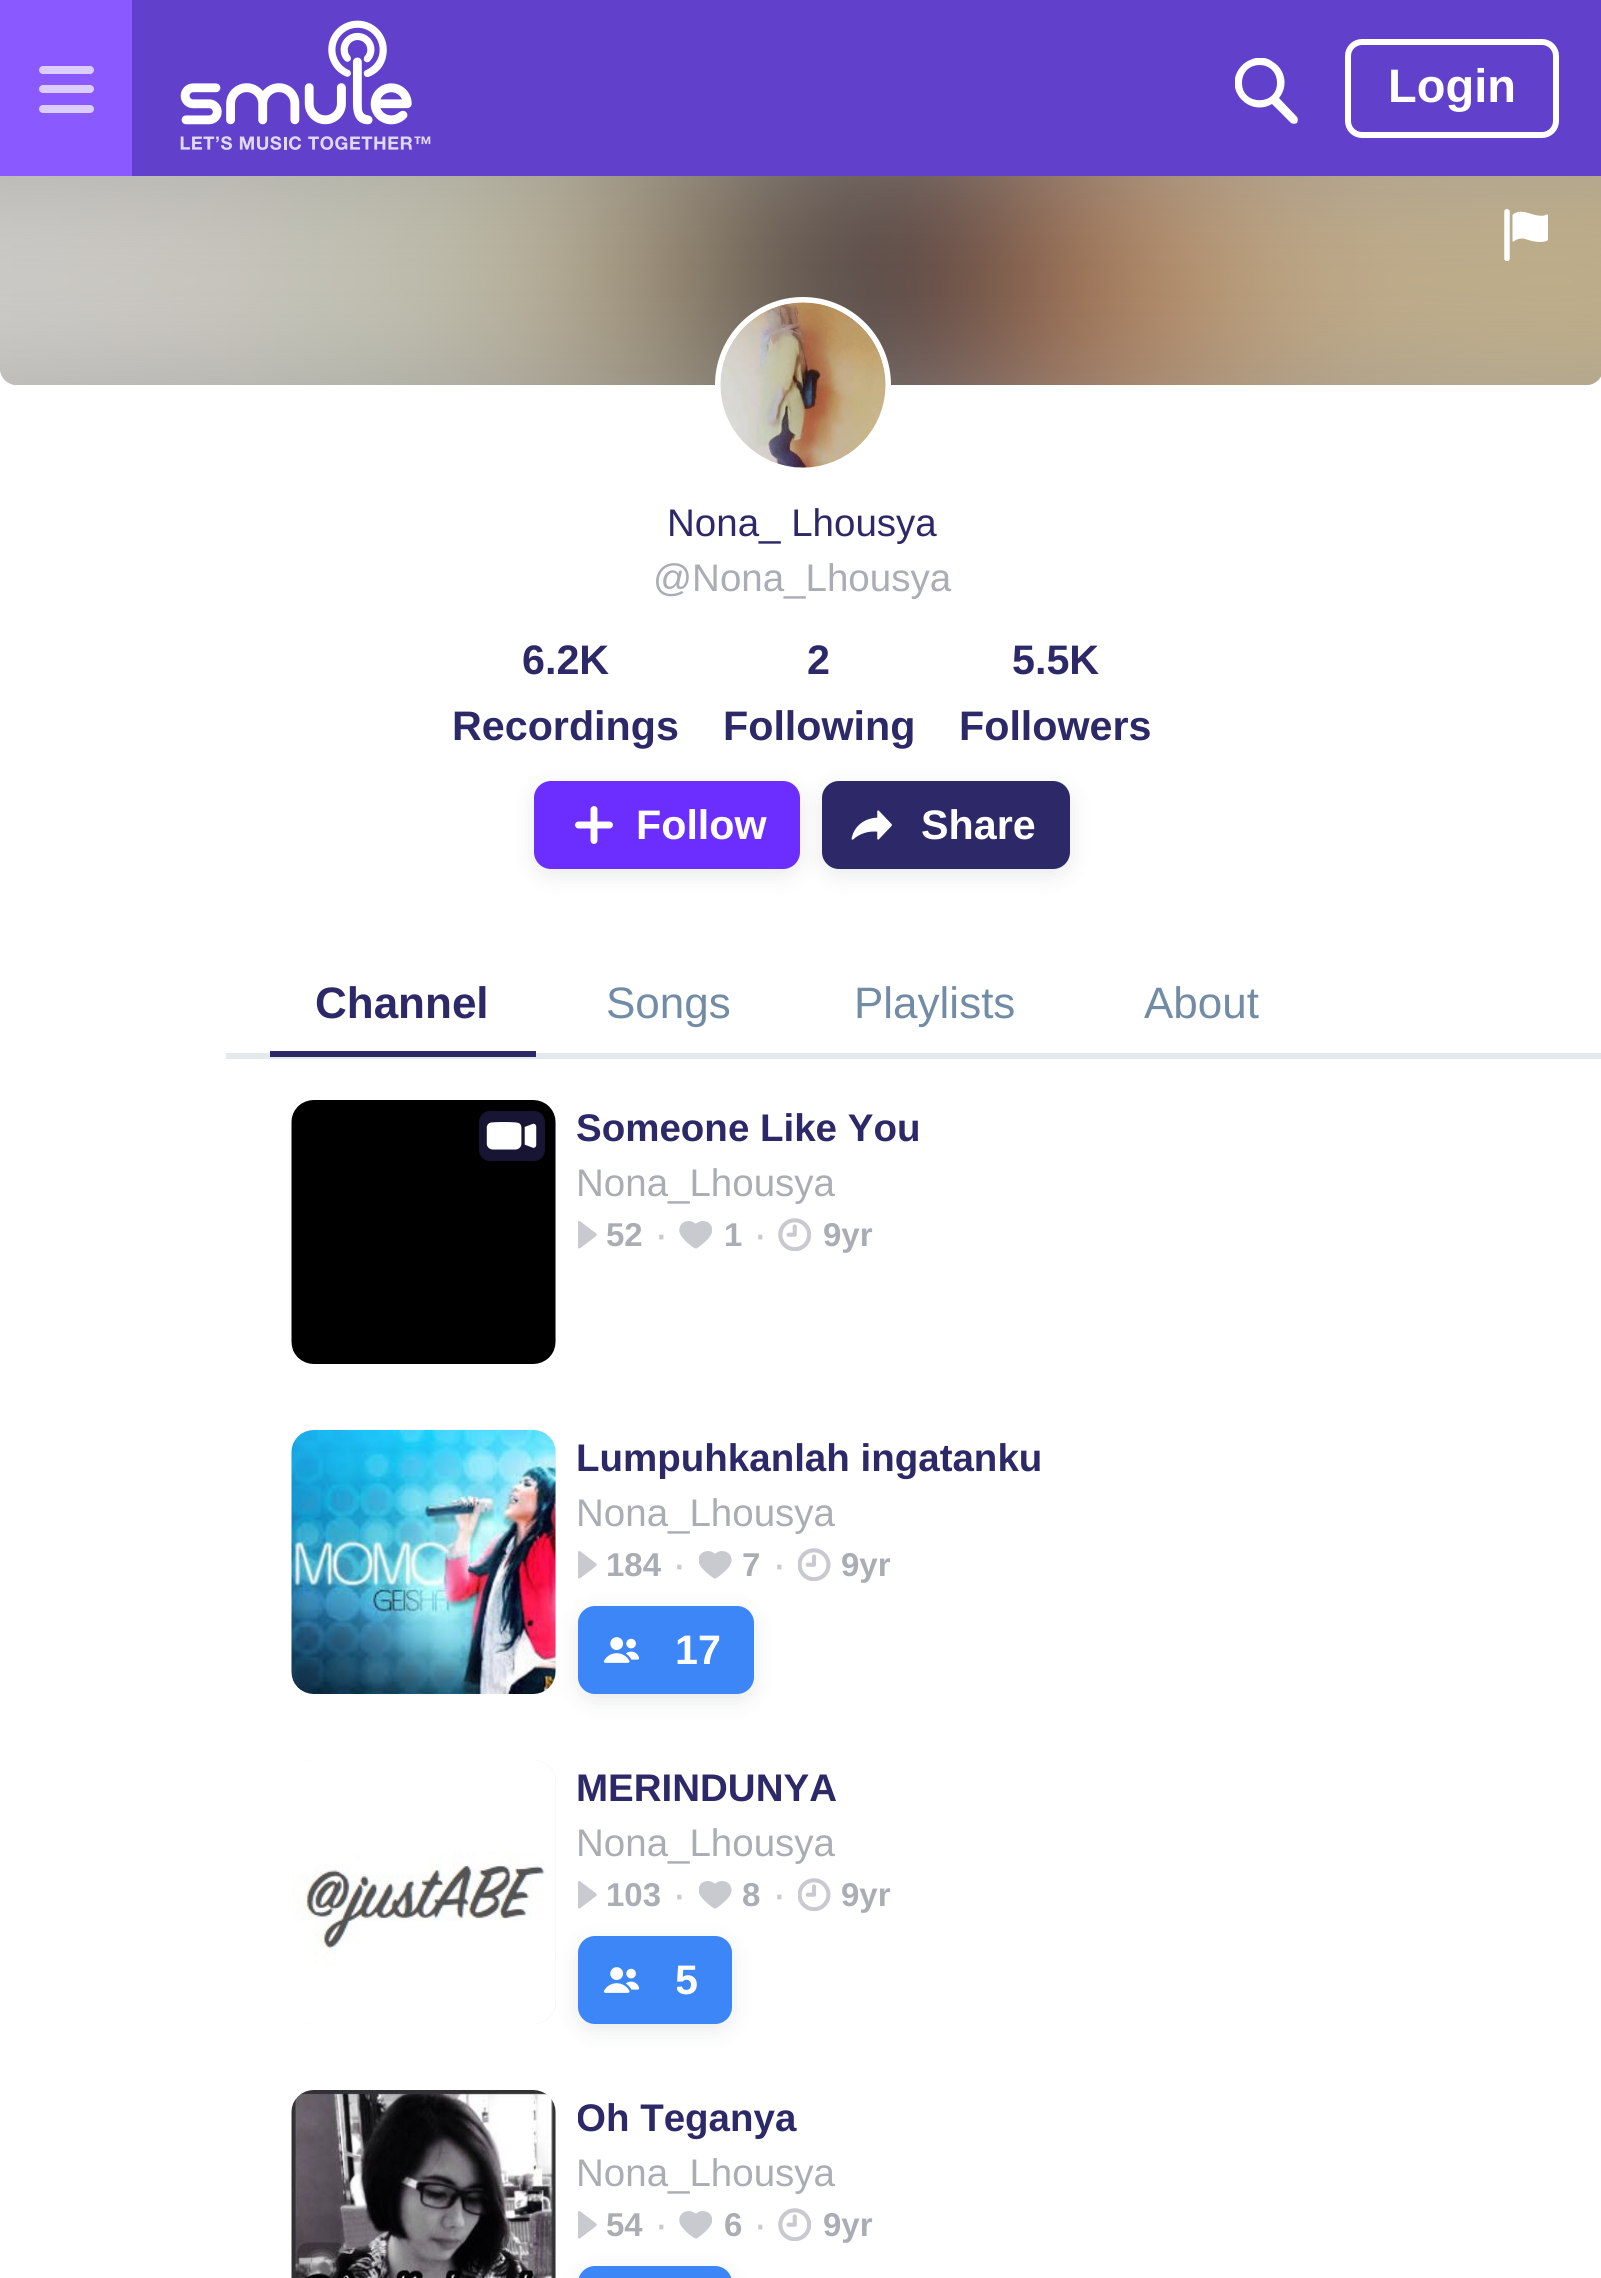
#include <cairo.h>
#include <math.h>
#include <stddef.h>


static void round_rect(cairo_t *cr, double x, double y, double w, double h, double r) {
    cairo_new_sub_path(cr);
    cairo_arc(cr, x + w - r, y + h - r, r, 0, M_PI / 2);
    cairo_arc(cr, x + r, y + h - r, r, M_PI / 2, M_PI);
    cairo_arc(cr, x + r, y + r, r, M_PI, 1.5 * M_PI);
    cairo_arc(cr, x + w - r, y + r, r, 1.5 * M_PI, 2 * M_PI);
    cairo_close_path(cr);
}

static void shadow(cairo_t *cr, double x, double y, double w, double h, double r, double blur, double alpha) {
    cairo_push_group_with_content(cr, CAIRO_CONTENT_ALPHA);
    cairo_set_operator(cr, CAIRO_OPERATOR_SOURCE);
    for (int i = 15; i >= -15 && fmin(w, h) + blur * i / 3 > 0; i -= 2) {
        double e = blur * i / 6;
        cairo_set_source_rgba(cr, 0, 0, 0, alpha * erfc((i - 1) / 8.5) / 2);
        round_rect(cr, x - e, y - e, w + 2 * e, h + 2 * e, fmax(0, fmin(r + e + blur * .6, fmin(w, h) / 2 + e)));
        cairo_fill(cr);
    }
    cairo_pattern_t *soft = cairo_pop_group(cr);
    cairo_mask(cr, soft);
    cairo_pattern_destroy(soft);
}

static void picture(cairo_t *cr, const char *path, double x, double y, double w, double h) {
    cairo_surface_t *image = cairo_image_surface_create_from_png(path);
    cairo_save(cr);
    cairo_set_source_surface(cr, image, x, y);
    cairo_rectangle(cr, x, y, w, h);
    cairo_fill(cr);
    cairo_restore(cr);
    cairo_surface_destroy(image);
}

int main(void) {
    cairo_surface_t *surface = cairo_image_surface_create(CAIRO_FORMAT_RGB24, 1601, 2278);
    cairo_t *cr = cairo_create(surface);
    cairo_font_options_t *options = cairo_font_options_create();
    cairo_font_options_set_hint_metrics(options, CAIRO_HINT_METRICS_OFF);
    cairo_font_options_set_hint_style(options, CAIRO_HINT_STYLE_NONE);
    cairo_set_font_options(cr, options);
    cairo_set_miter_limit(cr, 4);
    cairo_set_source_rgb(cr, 1, 1, 1);
    cairo_paint(cr);
    cairo_set_source_rgb(cr, 0.38, 0.251, 0.8);
    cairo_rectangle(cr, 132, 0, 1469, 176);
    cairo_fill(cr);
    cairo_set_source_rgb(cr, 0.541, 0.349, 1);
    cairo_rectangle(cr, 0, 0, 132, 176);
    cairo_fill(cr);
    cairo_set_source_rgb(cr, 0.863, 0.804, 1);
    round_rect(cr, 39, 85, 55, 8, 4);
    cairo_fill(cr);
    round_rect(cr, 39, 66, 55, 8, 4);
    cairo_fill(cr);
    round_rect(cr, 39, 105, 55, 8, 4);
    cairo_fill(cr);
    picture(cr, "img1.png", 180, 20, 251, 130);
    cairo_save(cr);
    cairo_rectangle(cr, 1235, 58, 66, 66);
    cairo_clip(cr);
    cairo_set_source_rgb(cr, 1, 1, 1);
    cairo_set_fill_rule(cr, CAIRO_FILL_RULE_EVEN_ODD);
    cairo_new_path(cr);
    cairo_move_to(cr, 1272, 104);
    cairo_curve_to(cr, 1250, 117, 1224, 91, 1239, 69);
    cairo_curve_to(cr, 1242, 65, 1245, 62, 1250, 60);
    cairo_curve_to(cr, 1258, 56, 1267, 57, 1273, 62);
    cairo_curve_to(cr, 1286, 70, 1288, 87, 1279, 98);
    cairo_line_to(cr, 1297, 117);
    cairo_curve_to(cr, 1298, 118, 1298, 121, 1297, 123);
    cairo_curve_to(cr, 1295, 124, 1293, 124, 1291, 123);
    cairo_close_path(cr);
    cairo_move_to(cr, 1277, 83);
    cairo_curve_to(cr, 1277, 106, 1242, 106, 1242, 83);
    cairo_curve_to(cr, 1242, 59, 1277, 59, 1277, 83);
    cairo_close_path(cr);
    cairo_fill(cr);
    cairo_restore(cr);
    round_rect(cr, 1348, 42, 208, 93, 14);
    cairo_set_source_rgb(cr, 1, 1, 1);
    cairo_set_line_width(cr, 6);
    cairo_stroke(cr);
    cairo_select_font_face(cr, "Liberation Sans", CAIRO_FONT_SLANT_NORMAL, CAIRO_FONT_WEIGHT_BOLD);
    cairo_set_font_size(cr, 47);
    cairo_move_to(cr, 1388, 102);
    cairo_show_text(cr, "Login");
    cairo_set_source_rgb(cr, 0.6, 0.6, 0.6);
    cairo_new_path(cr);
    cairo_move_to(cr, 0, 176);
    cairo_line_to(cr, 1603, 176);
    cairo_line_to(cr, 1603, 368);
    cairo_curve_to(cr, 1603, 377.5, 1595.5, 385, 1586, 385);
    cairo_line_to(cr, 17, 385);
    cairo_curve_to(cr, 7.5, 385, 0, 377.5, 0, 368);
    cairo_close_path(cr);
    cairo_fill(cr);
    picture(cr, "img2.png", 0, 176, 1601, 209);
    picture(cr, "img3.png", 1504, 209, 44, 52);
    cairo_arc(cr, 803, 385, 85, 0, 2 * M_PI);
    cairo_set_source_rgb(cr, 1, 1, 1);
    cairo_stroke(cr);
    picture(cr, "img4.png", 720, 302, 166, 166);
    cairo_select_font_face(cr, "Liberation Sans", CAIRO_FONT_SLANT_NORMAL, CAIRO_FONT_WEIGHT_NORMAL);
    cairo_set_font_size(cr, 38.5);
    cairo_set_source_rgb(cr, 0.176, 0.157, 0.404);
    cairo_move_to(cr, 667, 536);
    cairo_show_text(cr, "Nona_ Lhousya");
    cairo_set_source_rgb(cr, 0.667, 0.678, 0.706);
    cairo_move_to(cr, 653, 591);
    cairo_show_text(cr, "@Nona_Lhousya");
    cairo_select_font_face(cr, "Liberation Sans", CAIRO_FONT_SLANT_NORMAL, CAIRO_FONT_WEIGHT_BOLD);
    cairo_set_font_size(cr, 41.25);
    cairo_set_source_rgb(cr, 0.176, 0.157, 0.404);
    cairo_move_to(cr, 522, 674);
    cairo_show_text(cr, "6.2K");
    cairo_move_to(cr, 452, 740);
    cairo_show_text(cr, "Recordings");
    cairo_move_to(cr, 807, 674);
    cairo_show_text(cr, "2");
    cairo_move_to(cr, 723, 740);
    cairo_show_text(cr, "Following");
    cairo_move_to(cr, 1012, 674);
    cairo_show_text(cr, "5.5K");
    cairo_move_to(cr, 959, 740);
    cairo_show_text(cr, "Followers");
    cairo_set_source_rgb(cr, 0.122, 0.125, 0.129);
    shadow(cr, 534, 787, 266, 88, 17, 11, 0.1);
    cairo_set_source_rgb(cr, 0.424, 0.18, 1);
    round_rect(cr, 534, 781, 266, 88, 17);
    cairo_fill(cr);
    cairo_new_path(cr);
    cairo_move_to(cr, 578.5, 825);
    cairo_line_to(cr, 609.5, 825);
    cairo_move_to(cr, 594, 809.5);
    cairo_line_to(cr, 594, 840.5);
    cairo_set_source_rgb(cr, 1, 1, 1);
    cairo_set_line_width(cr, 6.9);
    cairo_set_line_cap(cr, CAIRO_LINE_CAP_ROUND);
    cairo_set_line_join(cr, CAIRO_LINE_JOIN_ROUND);
    cairo_stroke(cr);
    cairo_move_to(cr, 636, 839);
    cairo_show_text(cr, "Follow");
    cairo_set_source_rgb(cr, 0.122, 0.125, 0.129);
    shadow(cr, 822, 787, 248, 88, 17, 11, 0.1);
    cairo_set_source_rgb(cr, 0.176, 0.157, 0.404);
    round_rect(cr, 822, 781, 248, 88, 17);
    cairo_fill(cr);
    picture(cr, "img5.png", 851, 810, 41, 30);
    cairo_set_source_rgb(cr, 1, 1, 1);
    cairo_move_to(cr, 921, 839);
    cairo_show_text(cr, "Share");
    cairo_set_source_rgb(cr, 0.894, 0.914, 0.933);
    cairo_rectangle(cr, 226, 1053, 1375, 6);
    cairo_fill(cr);
    cairo_set_source_rgb(cr, 0.176, 0.157, 0.404);
    cairo_rectangle(cr, 270, 1051, 266, 6);
    cairo_fill(cr);
    cairo_set_font_size(cr, 44);
    cairo_move_to(cr, 315, 1018);
    cairo_show_text(cr, "Channel");
    cairo_select_font_face(cr, "Liberation Sans", CAIRO_FONT_SLANT_NORMAL, CAIRO_FONT_WEIGHT_NORMAL);
    cairo_set_source_rgb(cr, 0.447, 0.549, 0.651);
    cairo_move_to(cr, 606, 1018);
    cairo_show_text(cr, "Songs");
    cairo_move_to(cr, 854, 1018);
    cairo_show_text(cr, "Playlists");
    cairo_move_to(cr, 1144, 1018);
    cairo_show_text(cr, "About");
    cairo_set_source_rgb(cr, 0.941, 0.949, 0.957);
    round_rect(cr, 292, 1100, 264, 264, 22);
    cairo_fill(cr);
    picture(cr, "img6.png", 291, 1100, 265, 264);
    picture(cr, "img7.png", 479, 1111, 66, 50);
    cairo_select_font_face(cr, "Liberation Sans", CAIRO_FONT_SLANT_NORMAL, CAIRO_FONT_WEIGHT_BOLD);
    cairo_set_font_size(cr, 38.5);
    cairo_set_source_rgb(cr, 0.176, 0.157, 0.404);
    cairo_move_to(cr, 576, 1141);
    cairo_show_text(cr, "Someone Like You");
    cairo_select_font_face(cr, "Liberation Sans", CAIRO_FONT_SLANT_NORMAL, CAIRO_FONT_WEIGHT_NORMAL);
    cairo_set_source_rgb(cr, 0.667, 0.678, 0.706);
    cairo_move_to(cr, 576, 1196);
    cairo_show_text(cr, "Nona_Lhousya");
    picture(cr, "img8.png", 578, 1221, 19, 28);
    cairo_select_font_face(cr, "Liberation Sans", CAIRO_FONT_SLANT_NORMAL, CAIRO_FONT_WEIGHT_BOLD);
    cairo_set_font_size(cr, 33);
    cairo_move_to(cr, 606, 1246);
    cairo_show_text(cr, "52");
    cairo_select_font_face(cr, "Liberation Sans", CAIRO_FONT_SLANT_NORMAL, CAIRO_FONT_WEIGHT_NORMAL);
    cairo_set_font_size(cr, 44);
    cairo_set_source_rgb(cr, 0.784, 0.792, 0.812);
    cairo_move_to(cr, 654, 1249);
    cairo_show_text(cr, "·");
    picture(cr, "img9.png", 679, 1221, 33, 28);
    cairo_select_font_face(cr, "Liberation Sans", CAIRO_FONT_SLANT_NORMAL, CAIRO_FONT_WEIGHT_BOLD);
    cairo_set_font_size(cr, 33);
    cairo_set_source_rgb(cr, 0.667, 0.678, 0.706);
    cairo_move_to(cr, 724, 1246);
    cairo_show_text(cr, "1");
    cairo_select_font_face(cr, "Liberation Sans", CAIRO_FONT_SLANT_NORMAL, CAIRO_FONT_WEIGHT_NORMAL);
    cairo_set_font_size(cr, 44);
    cairo_set_source_rgb(cr, 0.784, 0.792, 0.812);
    cairo_move_to(cr, 753, 1249);
    cairo_show_text(cr, "·");
    picture(cr, "img10.png", 778, 1218, 33, 33);
    cairo_select_font_face(cr, "Liberation Sans", CAIRO_FONT_SLANT_NORMAL, CAIRO_FONT_WEIGHT_BOLD);
    cairo_set_font_size(cr, 33);
    cairo_set_source_rgb(cr, 0.667, 0.678, 0.706);
    cairo_move_to(cr, 823, 1246);
    cairo_show_text(cr, "9yr");
    cairo_set_source_rgb(cr, 0.941, 0.949, 0.957);
    round_rect(cr, 292, 1430, 264, 264, 22);
    cairo_fill(cr);
    picture(cr, "img11.png", 291, 1430, 265, 264);
    cairo_set_font_size(cr, 38.5);
    cairo_set_source_rgb(cr, 0.176, 0.157, 0.404);
    cairo_move_to(cr, 576, 1471);
    cairo_show_text(cr, "Lumpuhkanlah ingatanku");
    cairo_select_font_face(cr, "Liberation Sans", CAIRO_FONT_SLANT_NORMAL, CAIRO_FONT_WEIGHT_NORMAL);
    cairo_set_source_rgb(cr, 0.667, 0.678, 0.706);
    cairo_move_to(cr, 576, 1526);
    cairo_show_text(cr, "Nona_Lhousya");
    picture(cr, "img8.png", 578, 1551, 19, 28);
    cairo_select_font_face(cr, "Liberation Sans", CAIRO_FONT_SLANT_NORMAL, CAIRO_FONT_WEIGHT_BOLD);
    cairo_set_font_size(cr, 33);
    cairo_move_to(cr, 606, 1576);
    cairo_show_text(cr, "184");
    cairo_select_font_face(cr, "Liberation Sans", CAIRO_FONT_SLANT_NORMAL, CAIRO_FONT_WEIGHT_NORMAL);
    cairo_set_font_size(cr, 44);
    cairo_set_source_rgb(cr, 0.784, 0.792, 0.812);
    cairo_move_to(cr, 672, 1579);
    cairo_show_text(cr, "·");
    picture(cr, "img12.png", 699, 1551, 33, 28);
    cairo_select_font_face(cr, "Liberation Sans", CAIRO_FONT_SLANT_NORMAL, CAIRO_FONT_WEIGHT_BOLD);
    cairo_set_font_size(cr, 33);
    cairo_set_source_rgb(cr, 0.667, 0.678, 0.706);
    cairo_move_to(cr, 742, 1576);
    cairo_show_text(cr, "7");
    cairo_select_font_face(cr, "Liberation Sans", CAIRO_FONT_SLANT_NORMAL, CAIRO_FONT_WEIGHT_NORMAL);
    cairo_set_font_size(cr, 44);
    cairo_set_source_rgb(cr, 0.784, 0.792, 0.812);
    cairo_move_to(cr, 772, 1579);
    cairo_show_text(cr, "·");
    picture(cr, "img13.png", 798, 1548, 33, 33);
    cairo_select_font_face(cr, "Liberation Sans", CAIRO_FONT_SLANT_NORMAL, CAIRO_FONT_WEIGHT_BOLD);
    cairo_set_font_size(cr, 33);
    cairo_set_source_rgb(cr, 0.667, 0.678, 0.706);
    cairo_move_to(cr, 841, 1576);
    cairo_show_text(cr, "9yr");
    cairo_set_source_rgb(cr, 0.122, 0.125, 0.129);
    shadow(cr, 578, 1612, 176, 88, 17, 11, 0.1);
    cairo_set_source_rgb(cr, 0.235, 0.525, 0.969);
    round_rect(cr, 578, 1606, 176, 88, 17);
    cairo_fill(cr);
    picture(cr, "img14.png", 603, 1637, 37, 26);
    cairo_set_font_size(cr, 41.25);
    cairo_set_source_rgb(cr, 1, 1, 1);
    cairo_move_to(cr, 675, 1664);
    cairo_show_text(cr, "17");
    cairo_set_source_rgb(cr, 0.941, 0.949, 0.957);
    round_rect(cr, 292, 1760, 264, 264, 22);
    cairo_fill(cr);
    picture(cr, "img15.png", 292, 1760, 264, 264);
    cairo_set_font_size(cr, 38.5);
    cairo_set_source_rgb(cr, 0.176, 0.157, 0.404);
    cairo_move_to(cr, 576, 1801);
    cairo_show_text(cr, "MERINDUNYA");
    cairo_select_font_face(cr, "Liberation Sans", CAIRO_FONT_SLANT_NORMAL, CAIRO_FONT_WEIGHT_NORMAL);
    cairo_set_source_rgb(cr, 0.667, 0.678, 0.706);
    cairo_move_to(cr, 576, 1856);
    cairo_show_text(cr, "Nona_Lhousya");
    picture(cr, "img8.png", 578, 1881, 19, 28);
    cairo_select_font_face(cr, "Liberation Sans", CAIRO_FONT_SLANT_NORMAL, CAIRO_FONT_WEIGHT_BOLD);
    cairo_set_font_size(cr, 33);
    cairo_move_to(cr, 606, 1906);
    cairo_show_text(cr, "103");
    cairo_select_font_face(cr, "Liberation Sans", CAIRO_FONT_SLANT_NORMAL, CAIRO_FONT_WEIGHT_NORMAL);
    cairo_set_font_size(cr, 44);
    cairo_set_source_rgb(cr, 0.784, 0.792, 0.812);
    cairo_move_to(cr, 672, 1909);
    cairo_show_text(cr, "·");
    picture(cr, "img12.png", 699, 1881, 33, 28);
    cairo_select_font_face(cr, "Liberation Sans", CAIRO_FONT_SLANT_NORMAL, CAIRO_FONT_WEIGHT_BOLD);
    cairo_set_font_size(cr, 33);
    cairo_set_source_rgb(cr, 0.667, 0.678, 0.706);
    cairo_move_to(cr, 742, 1906);
    cairo_show_text(cr, "8");
    cairo_select_font_face(cr, "Liberation Sans", CAIRO_FONT_SLANT_NORMAL, CAIRO_FONT_WEIGHT_NORMAL);
    cairo_set_font_size(cr, 44);
    cairo_set_source_rgb(cr, 0.784, 0.792, 0.812);
    cairo_move_to(cr, 772, 1909);
    cairo_show_text(cr, "·");
    picture(cr, "img13.png", 798, 1878, 33, 33);
    cairo_select_font_face(cr, "Liberation Sans", CAIRO_FONT_SLANT_NORMAL, CAIRO_FONT_WEIGHT_BOLD);
    cairo_set_font_size(cr, 33);
    cairo_set_source_rgb(cr, 0.667, 0.678, 0.706);
    cairo_move_to(cr, 841, 1906);
    cairo_show_text(cr, "9yr");
    cairo_set_source_rgb(cr, 0.122, 0.125, 0.129);
    shadow(cr, 578, 1942, 154, 88, 17, 11, 0.1);
    cairo_set_source_rgb(cr, 0.235, 0.525, 0.969);
    round_rect(cr, 578, 1936, 154, 88, 17);
    cairo_fill(cr);
    picture(cr, "img14.png", 603, 1967, 37, 26);
    cairo_save(cr);
    cairo_rectangle(cr, 677, 1947, 22, 66);
    cairo_clip(cr);
    cairo_set_font_size(cr, 41.25);
    cairo_set_source_rgb(cr, 1, 1, 1);
    cairo_move_to(cr, 675, 1994);
    cairo_show_text(cr, "5");
    cairo_restore(cr);
    cairo_set_source_rgb(cr, 0.941, 0.949, 0.957);
    round_rect(cr, 292, 2090, 264, 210, 22);
    cairo_fill(cr);
    picture(cr, "img16.png", 291, 2090, 265, 188);
    cairo_save(cr);
    cairo_rectangle(cr, 578, 2090, 503, 55);
    cairo_clip(cr);
    cairo_set_font_size(cr, 38.5);
    cairo_set_source_rgb(cr, 0.176, 0.157, 0.404);
    cairo_move_to(cr, 576, 2131);
    cairo_show_text(cr, "Oh Teganya");
    cairo_restore(cr);
    cairo_select_font_face(cr, "Liberation Sans", CAIRO_FONT_SLANT_NORMAL, CAIRO_FONT_WEIGHT_NORMAL);
    cairo_set_font_size(cr, 38.5);
    cairo_set_source_rgb(cr, 0.667, 0.678, 0.706);
    cairo_move_to(cr, 576, 2186);
    cairo_show_text(cr, "Nona_Lhousya");
    picture(cr, "img8.png", 578, 2211, 19, 28);
    cairo_select_font_face(cr, "Liberation Sans", CAIRO_FONT_SLANT_NORMAL, CAIRO_FONT_WEIGHT_BOLD);
    cairo_set_font_size(cr, 33);
    cairo_move_to(cr, 606, 2236);
    cairo_show_text(cr, "54");
    cairo_select_font_face(cr, "Liberation Sans", CAIRO_FONT_SLANT_NORMAL, CAIRO_FONT_WEIGHT_NORMAL);
    cairo_set_font_size(cr, 44);
    cairo_set_source_rgb(cr, 0.784, 0.792, 0.812);
    cairo_move_to(cr, 654, 2239);
    cairo_show_text(cr, "·");
    picture(cr, "img9.png", 679, 2211, 33, 28);
    cairo_select_font_face(cr, "Liberation Sans", CAIRO_FONT_SLANT_NORMAL, CAIRO_FONT_WEIGHT_BOLD);
    cairo_set_font_size(cr, 33);
    cairo_set_source_rgb(cr, 0.667, 0.678, 0.706);
    cairo_move_to(cr, 724, 2236);
    cairo_show_text(cr, "6");
    cairo_select_font_face(cr, "Liberation Sans", CAIRO_FONT_SLANT_NORMAL, CAIRO_FONT_WEIGHT_NORMAL);
    cairo_set_font_size(cr, 44);
    cairo_set_source_rgb(cr, 0.784, 0.792, 0.812);
    cairo_move_to(cr, 753, 2239);
    cairo_show_text(cr, "·");
    picture(cr, "img10.png", 778, 2208, 33, 33);
    cairo_select_font_face(cr, "Liberation Sans", CAIRO_FONT_SLANT_NORMAL, CAIRO_FONT_WEIGHT_BOLD);
    cairo_set_font_size(cr, 33);
    cairo_set_source_rgb(cr, 0.667, 0.678, 0.706);
    cairo_move_to(cr, 823, 2236);
    cairo_show_text(cr, "9yr");
    cairo_set_source_rgb(cr, 0.122, 0.125, 0.129);
    shadow(cr, 578, 2272, 154, 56, 17, 11, 0.1);
    cairo_set_source_rgb(cr, 0.235, 0.525, 0.969);
    round_rect(cr, 578, 2266, 154, 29, 17);
    cairo_fill(cr);
    cairo_surface_write_to_png(surface, "page.png");
    cairo_font_options_destroy(options);
    cairo_destroy(cr);
    cairo_surface_destroy(surface);
    return 0;
}
